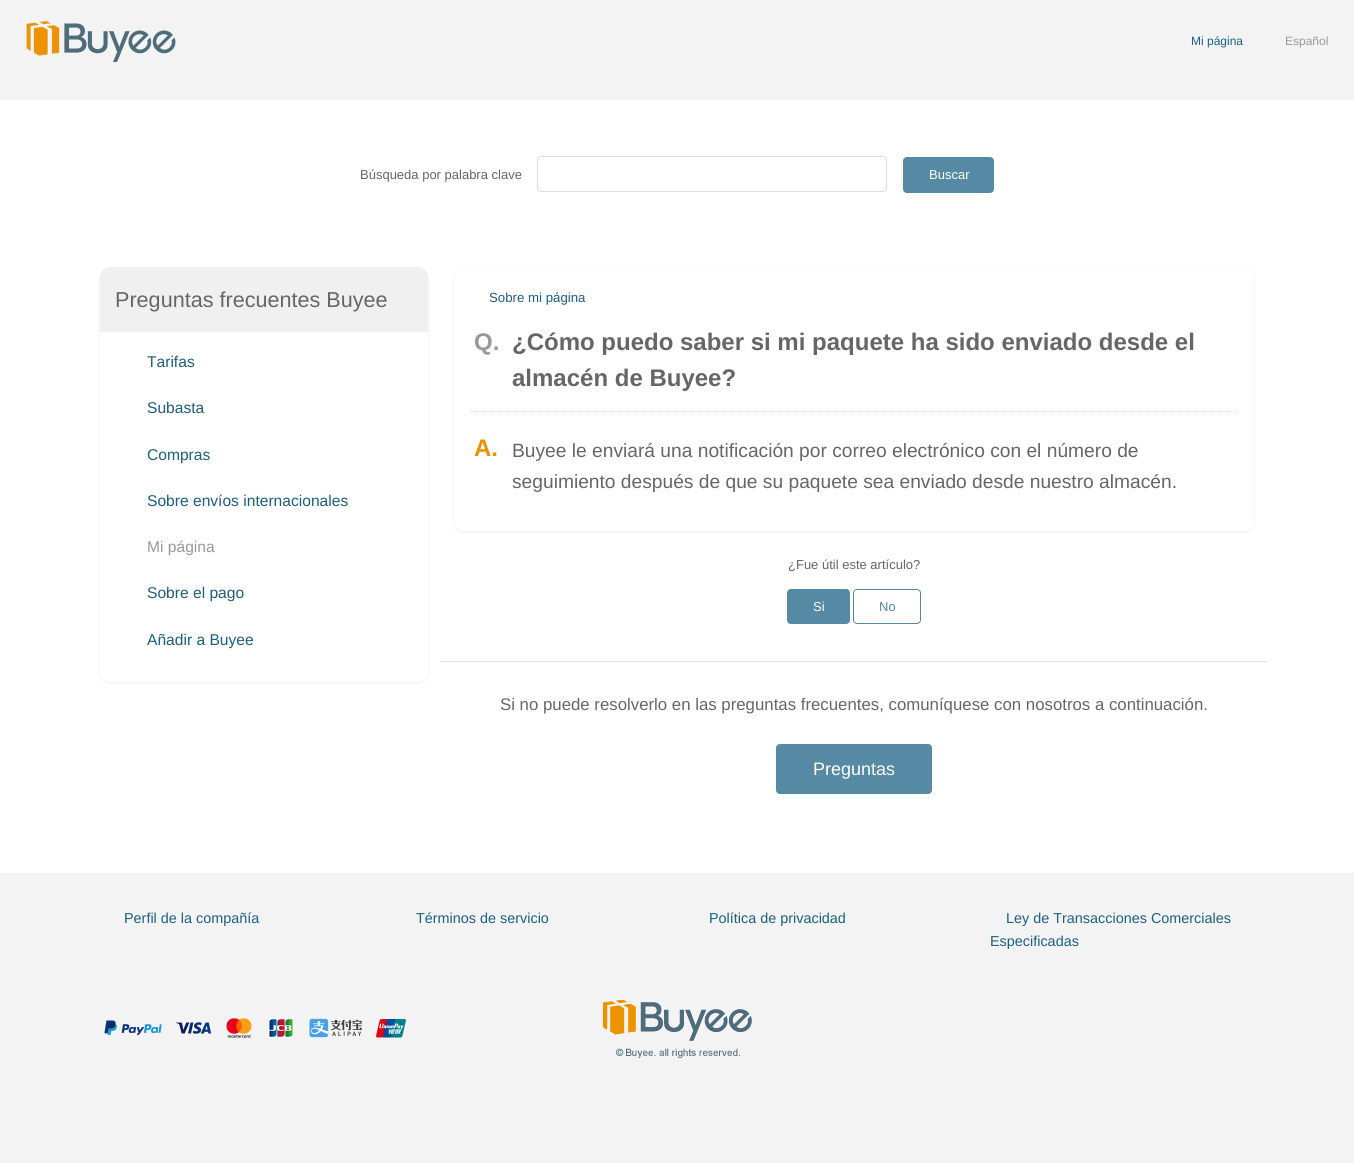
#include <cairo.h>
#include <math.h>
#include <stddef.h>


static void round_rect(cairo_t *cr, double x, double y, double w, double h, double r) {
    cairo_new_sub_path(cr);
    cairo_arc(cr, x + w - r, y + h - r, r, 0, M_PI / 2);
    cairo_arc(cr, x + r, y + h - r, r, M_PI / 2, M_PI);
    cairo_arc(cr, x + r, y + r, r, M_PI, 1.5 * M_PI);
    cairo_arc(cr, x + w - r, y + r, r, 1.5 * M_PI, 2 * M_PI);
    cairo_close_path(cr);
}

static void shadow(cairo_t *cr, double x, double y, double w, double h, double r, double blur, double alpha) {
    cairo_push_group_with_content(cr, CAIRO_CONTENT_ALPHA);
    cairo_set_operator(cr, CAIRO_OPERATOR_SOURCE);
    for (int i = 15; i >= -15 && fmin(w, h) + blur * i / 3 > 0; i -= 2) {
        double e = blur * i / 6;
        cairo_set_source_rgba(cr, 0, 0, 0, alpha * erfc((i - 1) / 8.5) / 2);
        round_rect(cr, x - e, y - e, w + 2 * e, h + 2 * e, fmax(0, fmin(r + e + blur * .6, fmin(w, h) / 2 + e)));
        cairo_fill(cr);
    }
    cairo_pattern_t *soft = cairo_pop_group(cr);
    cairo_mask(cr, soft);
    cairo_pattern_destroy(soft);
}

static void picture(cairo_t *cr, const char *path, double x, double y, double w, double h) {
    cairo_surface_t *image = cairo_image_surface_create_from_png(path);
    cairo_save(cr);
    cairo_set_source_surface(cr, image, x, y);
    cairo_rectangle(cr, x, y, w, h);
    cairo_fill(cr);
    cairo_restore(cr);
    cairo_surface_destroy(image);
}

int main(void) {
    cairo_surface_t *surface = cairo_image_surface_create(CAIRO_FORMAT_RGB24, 1354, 1163);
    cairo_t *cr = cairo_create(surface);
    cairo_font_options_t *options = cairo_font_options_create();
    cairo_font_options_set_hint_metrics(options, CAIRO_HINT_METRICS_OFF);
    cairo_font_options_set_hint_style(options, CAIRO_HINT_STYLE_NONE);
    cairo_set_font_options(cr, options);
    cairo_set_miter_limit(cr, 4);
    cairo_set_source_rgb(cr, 0.953, 0.953, 0.953);
    cairo_paint(cr);
    picture(cr, "img1.png", 26, 21, 150, 41);
    cairo_select_font_face(cr, "Liberation Sans", CAIRO_FONT_SLANT_NORMAL, CAIRO_FONT_WEIGHT_NORMAL);
    cairo_set_font_size(cr, 12);
    cairo_set_source_rgb(cr, 0.106, 0.373, 0.514);
    cairo_move_to(cr, 1191, 45);
    cairo_show_text(cr, "Mi página");
    cairo_set_source_rgb(cr, 0.6, 0.6, 0.6);
    cairo_move_to(cr, 1285, 45);
    cairo_show_text(cr, "Español");
    cairo_set_source_rgb(cr, 1, 1, 1);
    cairo_rectangle(cr, 0, 100, 1354, 773);
    cairo_fill(cr);
    cairo_set_font_size(cr, 13);
    cairo_set_source_rgb(cr, 0.4, 0.4, 0.4);
    cairo_move_to(cr, 360, 179);
    cairo_show_text(cr, "Búsqueda por palabra clave");
    round_rect(cr, 537.5, 156.5, 349, 35, 3.5);
    cairo_set_source_rgb(cr, 0.867, 0.867, 0.867);
    cairo_set_line_width(cr, 1);
    cairo_stroke(cr);
    cairo_set_source_rgb(cr, 0.333, 0.537, 0.643);
    round_rect(cr, 903, 157, 91, 36, 4);
    cairo_fill(cr);
    cairo_set_source_rgb(cr, 1, 1, 1);
    cairo_move_to(cr, 929, 179);
    cairo_show_text(cr, "Buscar");
    cairo_set_source_rgb(cr, 0.902, 0.902, 0.902);
    shadow(cr, 100, 268, 328, 415, 10, 1.5, 0.8);
    cairo_set_source_rgb(cr, 1, 1, 1);
    round_rect(cr, 100, 267, 328, 415, 10);
    cairo_fill(cr);
    cairo_set_source_rgb(cr, 0.941, 0.941, 0.941);
    cairo_new_path(cr);
    cairo_move_to(cr, 110, 267);
    cairo_line_to(cr, 418, 267);
    cairo_curve_to(cr, 423.5, 267, 428, 271.5, 428, 277);
    cairo_line_to(cr, 428, 332);
    cairo_line_to(cr, 100, 332);
    cairo_line_to(cr, 100, 277);
    cairo_curve_to(cr, 100, 271.5, 104.5, 267, 110, 267);
    cairo_close_path(cr);
    cairo_fill(cr);
    cairo_set_font_size(cr, 21.6);
    cairo_set_source_rgb(cr, 0.4, 0.4, 0.4);
    cairo_move_to(cr, 115, 307);
    cairo_show_text(cr, "Preguntas frecuentes Buyee");
    cairo_set_font_size(cr, 15.6);
    cairo_set_source_rgb(cr, 0.106, 0.373, 0.514);
    cairo_move_to(cr, 147, 367);
    cairo_show_text(cr, "Tarifas");
    cairo_move_to(cr, 147, 413);
    cairo_show_text(cr, "Subasta");
    cairo_move_to(cr, 147, 460);
    cairo_show_text(cr, "Compras");
    cairo_move_to(cr, 147, 506);
    cairo_show_text(cr, "Sobre envíos internacionales");
    cairo_set_source_rgb(cr, 0.6, 0.6, 0.6);
    cairo_move_to(cr, 147, 552);
    cairo_show_text(cr, "Mi página");
    cairo_set_source_rgb(cr, 0.106, 0.373, 0.514);
    cairo_move_to(cr, 147, 598);
    cairo_show_text(cr, "Sobre el pago");
    cairo_move_to(cr, 147, 645);
    cairo_show_text(cr, "Añadir a Buyee");
    cairo_set_source_rgb(cr, 0.902, 0.902, 0.902);
    shadow(cr, 454, 268, 800, 264, 10, 1.5, 0.8);
    cairo_set_source_rgb(cr, 1, 1, 1);
    round_rect(cr, 454, 267, 800, 264, 10);
    cairo_fill(cr);
    cairo_set_font_size(cr, 13.25);
    cairo_set_source_rgb(cr, 0.106, 0.373, 0.514);
    cairo_move_to(cr, 489, 302);
    cairo_show_text(cr, "Sobre mi página");
    cairo_new_path(cr);
    cairo_move_to(cr, 469, 411.5);
    cairo_line_to(cr, 1239, 411.5);
    cairo_set_source_rgb(cr, 0.867, 0.867, 0.867);
    cairo_set_dash(cr, (double[]){1, 1}, 2, 0);
    cairo_stroke(cr);
    cairo_select_font_face(cr, "Liberation Sans", CAIRO_FONT_SLANT_NORMAL, CAIRO_FONT_WEIGHT_BOLD);
    cairo_set_font_size(cr, 24);
    cairo_set_source_rgb(cr, 0.6, 0.6, 0.6);
    cairo_move_to(cr, 474, 350);
    cairo_show_text(cr, "Q.");
    cairo_set_source_rgb(cr, 0.4, 0.4, 0.4);
    cairo_move_to(cr, 512, 350);
    cairo_show_text(cr, "¿Cómo puedo saber si mi paquete ha sido enviado desde el");
    cairo_move_to(cr, 512, 386);
    cairo_show_text(cr, "almacén de Buyee?");
    cairo_set_source_rgb(cr, 0.922, 0.573, 0);
    cairo_move_to(cr, 474, 456);
    cairo_show_text(cr, "A.");
    cairo_select_font_face(cr, "Liberation Sans", CAIRO_FONT_SLANT_NORMAL, CAIRO_FONT_WEIGHT_NORMAL);
    cairo_set_font_size(cr, 19.2);
    cairo_set_source_rgb(cr, 0.4, 0.4, 0.4);
    cairo_move_to(cr, 512, 457);
    cairo_show_text(cr, "Buyee le enviará una notificación por correo electrónico con el número de");
    cairo_move_to(cr, 512, 488);
    cairo_show_text(cr, "seguimiento después de que su paquete sea enviado desde nuestro almacén.");
    cairo_set_font_size(cr, 13);
    cairo_move_to(cr, 788, 569);
    cairo_show_text(cr, "¿Fue útil este artículo?");
    cairo_set_source_rgb(cr, 0.333, 0.537, 0.643);
    round_rect(cr, 787, 589, 63, 35, 4);
    cairo_fill(cr);
    cairo_set_source_rgb(cr, 1, 1, 1);
    cairo_move_to(cr, 813, 611);
    cairo_show_text(cr, "Si");
    round_rect(cr, 853.5, 589.5, 67, 34, 3.5);
    cairo_set_source_rgb(cr, 0.333, 0.537, 0.643);
    cairo_set_dash(cr, NULL, 0, 0);
    cairo_stroke(cr);
    cairo_move_to(cr, 879, 611);
    cairo_show_text(cr, "No");
    cairo_set_source_rgb(cr, 0.867, 0.867, 0.867);
    cairo_rectangle(cr, 441, 661, 826, 1);
    cairo_fill(cr);
    cairo_set_font_size(cr, 16.8);
    cairo_set_source_rgb(cr, 0.4, 0.4, 0.4);
    cairo_move_to(cr, 500, 710);
    cairo_show_text(cr, "Si no puede resolverlo en las preguntas frecuentes, comuníquese con nosotros a continuación.");
    cairo_set_source_rgb(cr, 0.333, 0.537, 0.643);
    round_rect(cr, 776, 744, 156, 50, 4);
    cairo_fill(cr);
    cairo_set_font_size(cr, 18);
    cairo_set_source_rgb(cr, 1, 1, 1);
    cairo_move_to(cr, 813, 775);
    cairo_show_text(cr, "Preguntas");
    cairo_set_font_size(cr, 14.4);
    cairo_set_source_rgb(cr, 0.106, 0.373, 0.514);
    cairo_move_to(cr, 124, 923);
    cairo_show_text(cr, "Perfil de la compañía");
    cairo_move_to(cr, 416, 923);
    cairo_show_text(cr, "Términos de servicio");
    cairo_move_to(cr, 709, 923);
    cairo_show_text(cr, "Política de privacidad");
    cairo_move_to(cr, 1006, 923);
    cairo_show_text(cr, "Ley de Transacciones Comerciales");
    cairo_move_to(cr, 990, 946);
    cairo_show_text(cr, "Especificadas");
    picture(cr, "img2.png", 104, 1020, 58, 15);
    picture(cr, "img3.png", 175, 1022, 37, 12);
    picture(cr, "img4.png", 226, 1018, 26, 20);
    picture(cr, "img5.png", 268, 1018, 26, 20);
    picture(cr, "img6.png", 309, 1018, 53, 20);
    picture(cr, "img7.png", 376, 1019, 30, 19);
    picture(cr, "img8.png", 603, 999, 149, 59);
    cairo_surface_write_to_png(surface, "page.png");
    cairo_font_options_destroy(options);
    cairo_destroy(cr);
    cairo_surface_destroy(surface);
    return 0;
}
